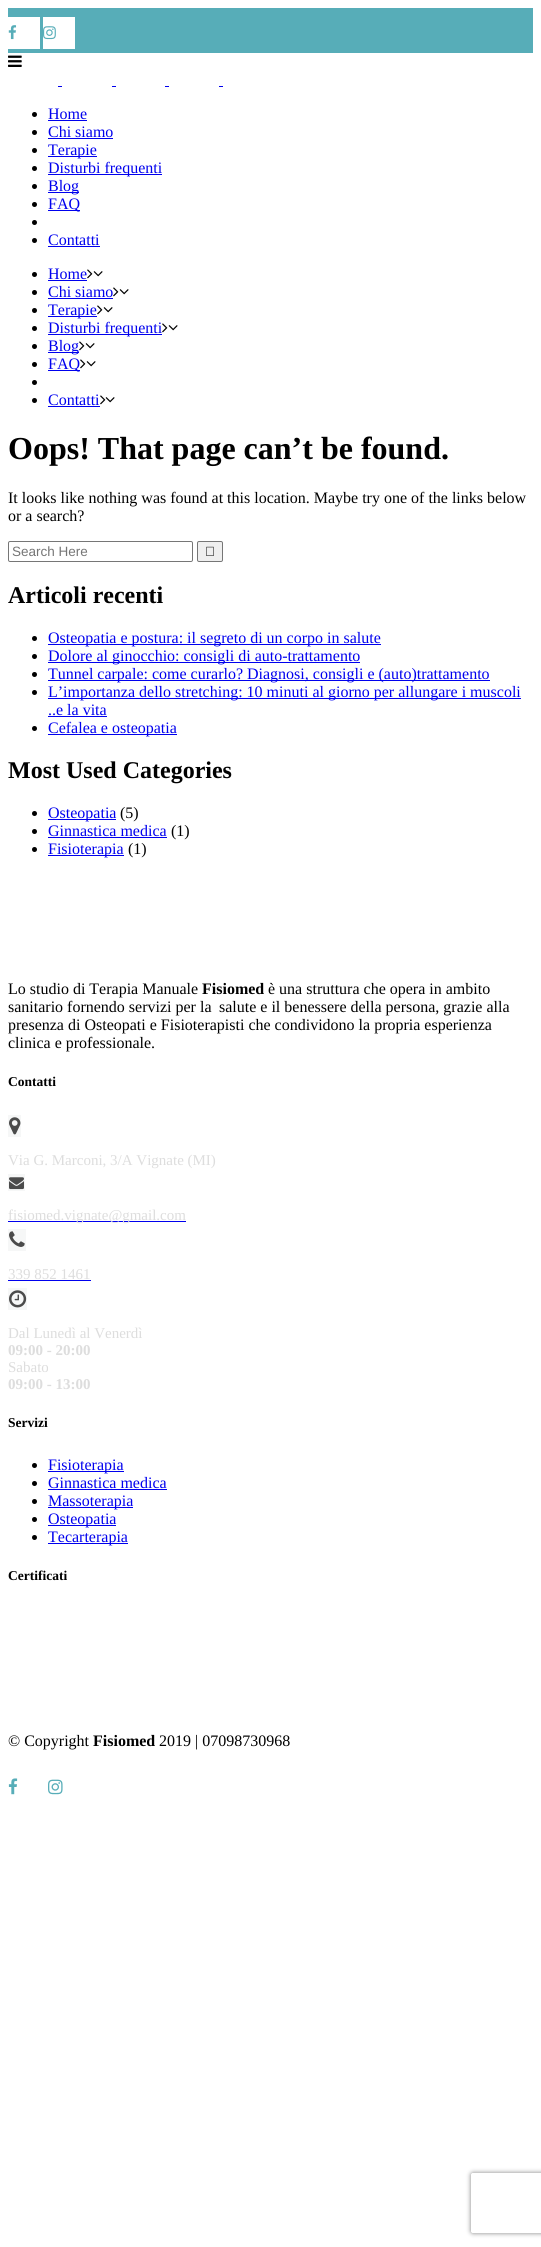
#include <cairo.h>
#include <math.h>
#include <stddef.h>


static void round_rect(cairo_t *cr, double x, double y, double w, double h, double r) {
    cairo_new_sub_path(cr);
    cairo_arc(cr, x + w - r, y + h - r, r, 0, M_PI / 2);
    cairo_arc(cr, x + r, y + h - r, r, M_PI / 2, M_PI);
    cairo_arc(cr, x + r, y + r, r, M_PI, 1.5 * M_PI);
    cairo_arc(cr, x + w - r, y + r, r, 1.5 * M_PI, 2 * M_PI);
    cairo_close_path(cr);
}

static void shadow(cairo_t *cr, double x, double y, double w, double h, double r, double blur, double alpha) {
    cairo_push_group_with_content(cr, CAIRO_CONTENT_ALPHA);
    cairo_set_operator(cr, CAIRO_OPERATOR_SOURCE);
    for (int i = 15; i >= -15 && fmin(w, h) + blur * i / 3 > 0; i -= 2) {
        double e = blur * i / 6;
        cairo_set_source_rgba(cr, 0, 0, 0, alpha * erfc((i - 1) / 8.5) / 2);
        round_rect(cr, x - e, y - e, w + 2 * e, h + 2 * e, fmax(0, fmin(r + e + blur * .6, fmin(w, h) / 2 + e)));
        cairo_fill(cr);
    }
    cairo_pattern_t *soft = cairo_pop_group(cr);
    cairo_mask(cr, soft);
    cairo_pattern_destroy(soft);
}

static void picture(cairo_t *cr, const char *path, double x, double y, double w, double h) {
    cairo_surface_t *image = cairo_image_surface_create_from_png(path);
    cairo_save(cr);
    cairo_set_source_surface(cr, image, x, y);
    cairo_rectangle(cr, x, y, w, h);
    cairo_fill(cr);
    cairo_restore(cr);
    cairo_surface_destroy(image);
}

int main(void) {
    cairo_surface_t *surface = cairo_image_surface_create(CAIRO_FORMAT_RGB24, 541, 2247);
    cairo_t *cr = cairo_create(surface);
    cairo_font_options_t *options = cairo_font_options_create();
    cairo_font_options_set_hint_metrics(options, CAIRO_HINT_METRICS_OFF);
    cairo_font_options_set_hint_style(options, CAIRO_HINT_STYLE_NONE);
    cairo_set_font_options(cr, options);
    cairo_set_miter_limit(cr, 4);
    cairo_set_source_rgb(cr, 1, 1, 1);
    cairo_paint(cr);
    cairo_set_source_rgb(cr, 0.341, 0.678, 0.722);
    cairo_rectangle(cr, 8, 8, 525, 45);
    cairo_fill(cr);
    cairo_set_source_rgb(cr, 1, 1, 1);
    cairo_rectangle(cr, 8, 17, 32, 32);
    cairo_fill(cr);
    picture(cr, "img1.png", 8, 25, 9, 15);
    cairo_rectangle(cr, 43, 17, 32, 32);
    cairo_fill(cr);
    picture(cr, "img2.png", 43, 26, 13, 14);
    picture(cr, "img3.png", 8, 55, 14, 12);
    cairo_set_source_rgb(cr, 0, 0, 0.933);
    cairo_rectangle(cr, 58, 86, 4, 1);
    cairo_fill(cr);
    cairo_rectangle(cr, 112, 86, 4, 1);
    cairo_fill(cr);
    cairo_rectangle(cr, 165, 86, 4, 1);
    cairo_fill(cr);
    cairo_rectangle(cr, 219, 86, 4, 1);
    cairo_fill(cr);
    cairo_set_source_rgb(cr, 0, 0, 0);
    cairo_arc(cr, 34.5, 114.5, 2.5, 0, 2 * M_PI);
    cairo_fill(cr);
    cairo_select_font_face(cr, "Liberation Serif", CAIRO_FONT_SLANT_NORMAL, CAIRO_FONT_WEIGHT_NORMAL);
    cairo_set_font_size(cr, 16);
    cairo_set_source_rgb(cr, 0, 0, 0.933);
    cairo_move_to(cr, 48, 119);
    cairo_show_text(cr, "Home");
    cairo_rectangle(cr, 48, 120, 39, 1);
    cairo_fill(cr);
    cairo_set_source_rgb(cr, 0, 0, 0);
    cairo_arc(cr, 34.5, 132.5, 2.5, 0, 2 * M_PI);
    cairo_fill(cr);
    cairo_set_source_rgb(cr, 0, 0, 0.933);
    cairo_move_to(cr, 48, 137);
    cairo_show_text(cr, "Chi siamo");
    cairo_rectangle(cr, 48, 138, 65, 1);
    cairo_fill(cr);
    cairo_set_source_rgb(cr, 0, 0, 0);
    cairo_arc(cr, 34.5, 150.5, 2.5, 0, 2 * M_PI);
    cairo_fill(cr);
    cairo_set_source_rgb(cr, 0, 0, 0.933);
    cairo_rectangle(cr, 48, 156, 49, 1);
    cairo_fill(cr);
    cairo_move_to(cr, 48, 155);
    cairo_show_text(cr, "Terapie");
    cairo_set_source_rgb(cr, 0, 0, 0);
    cairo_new_path(cr);
    cairo_arc(cr, 34.5, 168.5, 2.5, 0, 2 * M_PI);
    cairo_fill(cr);
    cairo_set_source_rgb(cr, 0, 0, 0.933);
    cairo_rectangle(cr, 48, 174, 114, 1);
    cairo_fill(cr);
    cairo_move_to(cr, 48, 173);
    cairo_show_text(cr, "Disturbi frequenti");
    cairo_set_source_rgb(cr, 0, 0, 0);
    cairo_new_path(cr);
    cairo_arc(cr, 34.5, 186.5, 2.5, 0, 2 * M_PI);
    cairo_fill(cr);
    cairo_set_source_rgb(cr, 0, 0, 0.933);
    cairo_rectangle(cr, 48, 192, 31, 1);
    cairo_fill(cr);
    cairo_move_to(cr, 48, 191);
    cairo_show_text(cr, "Blog");
    cairo_set_source_rgb(cr, 0, 0, 0);
    cairo_new_path(cr);
    cairo_arc(cr, 34.5, 204.5, 2.5, 0, 2 * M_PI);
    cairo_fill(cr);
    cairo_set_source_rgb(cr, 0, 0, 0.933);
    cairo_rectangle(cr, 48, 210, 32, 1);
    cairo_fill(cr);
    cairo_move_to(cr, 48, 209);
    cairo_show_text(cr, "FAQ");
    cairo_set_source_rgb(cr, 0, 0, 0);
    cairo_new_path(cr);
    cairo_arc(cr, 34.5, 222.5, 2.5, 0, 2 * M_PI);
    cairo_fill(cr);
    cairo_arc(cr, 34.5, 240.5, 2.5, 0, 2 * M_PI);
    cairo_fill(cr);
    cairo_set_source_rgb(cr, 0, 0, 0.933);
    cairo_move_to(cr, 48, 245);
    cairo_show_text(cr, "Contatti");
    cairo_rectangle(cr, 48, 246, 52, 1);
    cairo_fill(cr);
    cairo_set_source_rgb(cr, 0, 0, 0);
    cairo_arc(cr, 34.5, 274.5, 2.5, 0, 2 * M_PI);
    cairo_fill(cr);
    cairo_set_source_rgb(cr, 0, 0, 0.933);
    cairo_move_to(cr, 48, 279);
    cairo_show_text(cr, "Home");
    cairo_rectangle(cr, 48, 280, 39, 1);
    cairo_fill(cr);
    picture(cr, "img4.png", 87, 269, 6, 10);
    picture(cr, "img5.png", 93, 271, 10, 6);
    cairo_set_source_rgb(cr, 0, 0, 0);
    cairo_arc(cr, 34.5, 292.5, 2.5, 0, 2 * M_PI);
    cairo_fill(cr);
    cairo_set_source_rgb(cr, 0, 0, 0.933);
    cairo_move_to(cr, 48, 297);
    cairo_show_text(cr, "Chi siamo");
    cairo_rectangle(cr, 48, 298, 65, 1);
    cairo_fill(cr);
    picture(cr, "img4.png", 113, 287, 6, 10);
    picture(cr, "img5.png", 119, 289, 10, 6);
    cairo_set_source_rgb(cr, 0, 0, 0);
    cairo_arc(cr, 34.5, 310.5, 2.5, 0, 2 * M_PI);
    cairo_fill(cr);
    cairo_set_source_rgb(cr, 0, 0, 0.933);
    cairo_rectangle(cr, 48, 316, 49, 1);
    cairo_fill(cr);
    cairo_move_to(cr, 48, 315);
    cairo_show_text(cr, "Terapie");
    picture(cr, "img4.png", 97, 305, 6, 10);
    picture(cr, "img5.png", 103, 307, 10, 6);
    cairo_set_source_rgb(cr, 0, 0, 0);
    cairo_arc(cr, 34.5, 328.5, 2.5, 0, 2 * M_PI);
    cairo_fill(cr);
    cairo_set_source_rgb(cr, 0, 0, 0.933);
    cairo_rectangle(cr, 48, 334, 114, 1);
    cairo_fill(cr);
    cairo_move_to(cr, 48, 333);
    cairo_show_text(cr, "Disturbi frequenti");
    picture(cr, "img4.png", 162, 323, 6, 10);
    picture(cr, "img5.png", 168, 325, 10, 6);
    cairo_set_source_rgb(cr, 0, 0, 0);
    cairo_arc(cr, 34.5, 346.5, 2.5, 0, 2 * M_PI);
    cairo_fill(cr);
    cairo_set_source_rgb(cr, 0, 0, 0.933);
    cairo_rectangle(cr, 48, 352, 31, 1);
    cairo_fill(cr);
    cairo_move_to(cr, 48, 351);
    cairo_show_text(cr, "Blog");
    picture(cr, "img4.png", 79, 341, 6, 10);
    picture(cr, "img5.png", 85, 343, 10, 6);
    cairo_set_source_rgb(cr, 0, 0, 0);
    cairo_arc(cr, 34.5, 364.5, 2.5, 0, 2 * M_PI);
    cairo_fill(cr);
    cairo_set_source_rgb(cr, 0, 0, 0.933);
    cairo_rectangle(cr, 48, 370, 32, 1);
    cairo_fill(cr);
    cairo_move_to(cr, 48, 369);
    cairo_show_text(cr, "FAQ");
    picture(cr, "img4.png", 80, 359, 6, 10);
    picture(cr, "img5.png", 86, 361, 10, 6);
    cairo_set_source_rgb(cr, 0, 0, 0);
    cairo_arc(cr, 34.5, 382.5, 2.5, 0, 2 * M_PI);
    cairo_fill(cr);
    cairo_arc(cr, 34.5, 400.5, 2.5, 0, 2 * M_PI);
    cairo_fill(cr);
    cairo_set_source_rgb(cr, 0, 0, 0.933);
    cairo_move_to(cr, 48, 405);
    cairo_show_text(cr, "Contatti");
    cairo_rectangle(cr, 48, 406, 52, 1);
    cairo_fill(cr);
    picture(cr, "img4.png", 100, 395, 6, 10);
    picture(cr, "img6.png", 105, 397, 10, 6);
    cairo_select_font_face(cr, "Liberation Serif", CAIRO_FONT_SLANT_NORMAL, CAIRO_FONT_WEIGHT_BOLD);
    cairo_set_font_size(cr, 32);
    cairo_set_source_rgb(cr, 0, 0, 0);
    cairo_move_to(cr, 8, 459);
    cairo_show_text(cr, "Oops! That page can’t be found.");
    cairo_select_font_face(cr, "Liberation Serif", CAIRO_FONT_SLANT_NORMAL, CAIRO_FONT_WEIGHT_NORMAL);
    cairo_set_font_size(cr, 16);
    cairo_move_to(cr, 8, 503);
    cairo_show_text(cr, "It looks like nothing was found at this location. Maybe try one of the links below");
    cairo_move_to(cr, 8, 521);
    cairo_show_text(cr, "or a search?");
    round_rect(cr, 8.5, 541.5, 184, 20, 1.5);
    cairo_set_source_rgb(cr, 0.463, 0.463, 0.463);
    cairo_set_line_width(cr, 1);
    cairo_stroke(cr);
    cairo_select_font_face(cr, "Liberation Sans", CAIRO_FONT_SLANT_NORMAL, CAIRO_FONT_WEIGHT_NORMAL);
    cairo_set_font_size(cr, 13.5);
    cairo_set_source_rgb(cr, 0.459, 0.459, 0.459);
    cairo_move_to(cr, 12, 556);
    cairo_show_text(cr, "Search Here");
    cairo_set_source_rgb(cr, 0.937, 0.937, 0.937);
    round_rect(cr, 197.5, 541.5, 25, 20, 1.5);
    cairo_fill_preserve(cr);
    cairo_set_source_rgb(cr, 0.463, 0.463, 0.463);
    cairo_stroke(cr);
    picture(cr, "img7.png", 206, 546, 8, 10);
    cairo_select_font_face(cr, "Liberation Serif", CAIRO_FONT_SLANT_NORMAL, CAIRO_FONT_WEIGHT_BOLD);
    cairo_set_font_size(cr, 24);
    cairo_set_source_rgb(cr, 0, 0, 0);
    cairo_move_to(cr, 8, 603);
    cairo_show_text(cr, "Articoli recenti");
    cairo_new_path(cr);
    cairo_arc(cr, 34.5, 638.5, 2.5, 0, 2 * M_PI);
    cairo_fill(cr);
    cairo_set_source_rgb(cr, 0, 0, 0.933);
    cairo_rectangle(cr, 48, 644, 333, 1);
    cairo_fill(cr);
    cairo_select_font_face(cr, "Liberation Serif", CAIRO_FONT_SLANT_NORMAL, CAIRO_FONT_WEIGHT_NORMAL);
    cairo_set_font_size(cr, 16);
    cairo_move_to(cr, 48, 643);
    cairo_show_text(cr, "Osteopatia e postura: il segreto di un corpo in salute");
    cairo_set_source_rgb(cr, 0, 0, 0);
    cairo_new_path(cr);
    cairo_arc(cr, 34.5, 656.5, 2.5, 0, 2 * M_PI);
    cairo_fill(cr);
    cairo_set_source_rgb(cr, 0, 0, 0.933);
    cairo_rectangle(cr, 48, 662, 312, 1);
    cairo_fill(cr);
    cairo_move_to(cr, 48, 661);
    cairo_show_text(cr, "Dolore al ginocchio: consigli di auto-trattamento");
    cairo_set_source_rgb(cr, 0, 0, 0);
    cairo_new_path(cr);
    cairo_arc(cr, 34.5, 674.5, 2.5, 0, 2 * M_PI);
    cairo_fill(cr);
    cairo_set_source_rgb(cr, 0, 0, 0.933);
    cairo_rectangle(cr, 48, 680, 442, 1);
    cairo_fill(cr);
    cairo_move_to(cr, 48, 679);
    cairo_show_text(cr, "Tunnel carpale: come curarlo? Diagnosi, consigli e (auto)trattamento");
    cairo_set_source_rgb(cr, 0, 0, 0);
    cairo_new_path(cr);
    cairo_arc(cr, 34.5, 692.5, 2.5, 0, 2 * M_PI);
    cairo_fill(cr);
    cairo_set_source_rgb(cr, 0, 0, 0.933);
    cairo_rectangle(cr, 48, 698, 473, 1);
    cairo_fill(cr);
    cairo_move_to(cr, 48, 697);
    cairo_show_text(cr, "L’importanza dello stretching: 10 minuti al giorno per allungare i muscoli");
    cairo_move_to(cr, 48, 715);
    cairo_show_text(cr, "..e la vita");
    cairo_rectangle(cr, 48, 716, 59, 1);
    cairo_fill(cr);
    cairo_set_source_rgb(cr, 0, 0, 0);
    cairo_arc(cr, 34.5, 728.5, 2.5, 0, 2 * M_PI);
    cairo_fill(cr);
    cairo_set_source_rgb(cr, 0, 0, 0.933);
    cairo_rectangle(cr, 48, 734, 129, 1);
    cairo_fill(cr);
    cairo_move_to(cr, 48, 733);
    cairo_show_text(cr, "Cefalea e osteopatia");
    cairo_select_font_face(cr, "Liberation Serif", CAIRO_FONT_SLANT_NORMAL, CAIRO_FONT_WEIGHT_BOLD);
    cairo_set_font_size(cr, 24);
    cairo_set_source_rgb(cr, 0, 0, 0);
    cairo_move_to(cr, 8, 778);
    cairo_show_text(cr, "Most Used Categories");
    cairo_new_path(cr);
    cairo_arc(cr, 34.5, 813.5, 2.5, 0, 2 * M_PI);
    cairo_fill(cr);
    cairo_set_source_rgb(cr, 0, 0, 0.933);
    cairo_rectangle(cr, 48, 819, 68, 1);
    cairo_fill(cr);
    cairo_select_font_face(cr, "Liberation Serif", CAIRO_FONT_SLANT_NORMAL, CAIRO_FONT_WEIGHT_NORMAL);
    cairo_set_font_size(cr, 16);
    cairo_move_to(cr, 48, 818);
    cairo_show_text(cr, "Osteopatia");
    cairo_set_source_rgb(cr, 0, 0, 0);
    cairo_move_to(cr, 120, 818);
    cairo_show_text(cr, "(5)");
    cairo_new_path(cr);
    cairo_arc(cr, 34.5, 831.5, 2.5, 0, 2 * M_PI);
    cairo_fill(cr);
    cairo_set_source_rgb(cr, 0, 0, 0.933);
    cairo_move_to(cr, 48, 836);
    cairo_show_text(cr, "Ginnastica medica");
    cairo_rectangle(cr, 48, 837, 119, 1);
    cairo_fill(cr);
    cairo_set_source_rgb(cr, 0, 0, 0);
    cairo_move_to(cr, 171, 836);
    cairo_show_text(cr, "(1)");
    cairo_new_path(cr);
    cairo_arc(cr, 34.5, 849.5, 2.5, 0, 2 * M_PI);
    cairo_fill(cr);
    cairo_set_source_rgb(cr, 0, 0, 0.933);
    cairo_rectangle(cr, 48, 855, 76, 1);
    cairo_fill(cr);
    cairo_move_to(cr, 48, 854);
    cairo_show_text(cr, "Fisioterapia");
    cairo_set_source_rgb(cr, 0, 0, 0);
    cairo_move_to(cr, 128, 854);
    cairo_show_text(cr, "(1)");
    cairo_move_to(cr, 8, 994);
    cairo_show_text(cr, "Lo studio di Terapia Manuale");
    cairo_select_font_face(cr, "Liberation Serif", CAIRO_FONT_SLANT_NORMAL, CAIRO_FONT_WEIGHT_BOLD);
    cairo_move_to(cr, 202, 994);
    cairo_show_text(cr, "Fisiomed");
    cairo_select_font_face(cr, "Liberation Serif", CAIRO_FONT_SLANT_NORMAL, CAIRO_FONT_WEIGHT_NORMAL);
    cairo_move_to(cr, 268, 994);
    cairo_show_text(cr, "è una struttura che opera in ambito");
    cairo_move_to(cr, 8, 1012);
    cairo_show_text(cr, "sanitario fornendo servizi per la");
    cairo_move_to(cr, 219, 1012);
    cairo_show_text(cr, "salute e il benessere della persona, grazie alla");
    cairo_move_to(cr, 8, 1030);
    cairo_show_text(cr, "presenza di Osteopati e Fisioterapisti che condividono la propria esperienza");
    cairo_move_to(cr, 8, 1048);
    cairo_show_text(cr, "clinica e professionale.");
    cairo_select_font_face(cr, "Liberation Serif", CAIRO_FONT_SLANT_NORMAL, CAIRO_FONT_WEIGHT_BOLD);
    cairo_set_font_size(cr, 13.5);
    cairo_move_to(cr, 8, 1086);
    cairo_show_text(cr, "Contatti");
    cairo_set_source_rgb(cr, 0.961, 0.965, 0.965);
    cairo_rectangle(cr, 8, 1115, 13, 22);
    cairo_fill(cr);
    picture(cr, "img8.png", 9, 1117, 12, 18);
    cairo_select_font_face(cr, "Liberation Serif", CAIRO_FONT_SLANT_NORMAL, CAIRO_FONT_WEIGHT_NORMAL);
    cairo_set_font_size(cr, 15);
    cairo_set_source_rgb(cr, 0.867, 0.867, 0.867);
    cairo_move_to(cr, 8, 1165);
    cairo_show_text(cr, "Via G. Marconi, 3/A Vignate (MI)");
    cairo_set_source_rgb(cr, 0.961, 0.965, 0.965);
    cairo_rectangle(cr, 8, 1174, 17, 17);
    cairo_fill(cr);
    picture(cr, "img9.png", 9, 1177, 15, 13);
    cairo_set_source_rgb(cr, 0, 0, 0.933);
    cairo_rectangle(cr, 8, 1221, 178, 1);
    cairo_fill(cr);
    cairo_set_source_rgb(cr, 0.867, 0.867, 0.867);
    cairo_move_to(cr, 8, 1220);
    cairo_show_text(cr, "fisiomed.vignate@gmail.com");
    cairo_set_source_rgb(cr, 0.961, 0.965, 0.965);
    cairo_rectangle(cr, 8, 1229, 18, 22);
    cairo_fill(cr);
    picture(cr, "img10.png", 9, 1231, 16, 16);
    cairo_set_source_rgb(cr, 0.867, 0.867, 0.867);
    cairo_move_to(cr, 8, 1279);
    cairo_show_text(cr, "339 852 1461");
    cairo_set_source_rgb(cr, 0, 0, 0.933);
    cairo_rectangle(cr, 8, 1280, 83, 1);
    cairo_fill(cr);
    cairo_set_source_rgb(cr, 0.961, 0.965, 0.965);
    cairo_rectangle(cr, 8, 1288, 19, 22);
    cairo_fill(cr);
    picture(cr, "img11.png", 9, 1290, 18, 18);
    cairo_set_source_rgb(cr, 0.867, 0.867, 0.867);
    cairo_move_to(cr, 8, 1338);
    cairo_show_text(cr, "Dal Lunedì al Venerdì");
    cairo_select_font_face(cr, "Liberation Serif", CAIRO_FONT_SLANT_NORMAL, CAIRO_FONT_WEIGHT_BOLD);
    cairo_move_to(cr, 8, 1355);
    cairo_show_text(cr, "09:00 - 20:00");
    cairo_select_font_face(cr, "Liberation Serif", CAIRO_FONT_SLANT_NORMAL, CAIRO_FONT_WEIGHT_NORMAL);
    cairo_move_to(cr, 8, 1372);
    cairo_show_text(cr, "Sabato");
    cairo_select_font_face(cr, "Liberation Serif", CAIRO_FONT_SLANT_NORMAL, CAIRO_FONT_WEIGHT_BOLD);
    cairo_move_to(cr, 8, 1389);
    cairo_show_text(cr, "09:00 - 13:00");
    cairo_set_font_size(cr, 13.5);
    cairo_set_source_rgb(cr, 0, 0, 0);
    cairo_move_to(cr, 8, 1427);
    cairo_show_text(cr, "Servizi");
    cairo_new_path(cr);
    cairo_arc(cr, 34.5, 1465.5, 2.5, 0, 2 * M_PI);
    cairo_fill(cr);
    cairo_set_source_rgb(cr, 0, 0, 0.933);
    cairo_rectangle(cr, 48, 1471, 76, 1);
    cairo_fill(cr);
    cairo_select_font_face(cr, "Liberation Serif", CAIRO_FONT_SLANT_NORMAL, CAIRO_FONT_WEIGHT_NORMAL);
    cairo_set_font_size(cr, 16);
    cairo_move_to(cr, 48, 1470);
    cairo_show_text(cr, "Fisioterapia");
    cairo_set_source_rgb(cr, 0, 0, 0);
    cairo_new_path(cr);
    cairo_arc(cr, 34.5, 1483.5, 2.5, 0, 2 * M_PI);
    cairo_fill(cr);
    cairo_set_source_rgb(cr, 0, 0, 0.933);
    cairo_move_to(cr, 48, 1488);
    cairo_show_text(cr, "Ginnastica medica");
    cairo_rectangle(cr, 48, 1489, 119, 1);
    cairo_fill(cr);
    cairo_set_source_rgb(cr, 0, 0, 0);
    cairo_arc(cr, 34.5, 1501.5, 2.5, 0, 2 * M_PI);
    cairo_fill(cr);
    cairo_set_source_rgb(cr, 0, 0, 0.933);
    cairo_rectangle(cr, 48, 1507, 85, 1);
    cairo_fill(cr);
    cairo_move_to(cr, 48, 1506);
    cairo_show_text(cr, "Massoterapia");
    cairo_set_source_rgb(cr, 0, 0, 0);
    cairo_new_path(cr);
    cairo_arc(cr, 34.5, 1519.5, 2.5, 0, 2 * M_PI);
    cairo_fill(cr);
    cairo_set_source_rgb(cr, 0, 0, 0.933);
    cairo_rectangle(cr, 48, 1525, 68, 1);
    cairo_fill(cr);
    cairo_move_to(cr, 48, 1524);
    cairo_show_text(cr, "Osteopatia");
    cairo_set_source_rgb(cr, 0, 0, 0);
    cairo_new_path(cr);
    cairo_arc(cr, 34.5, 1537.5, 2.5, 0, 2 * M_PI);
    cairo_fill(cr);
    cairo_set_source_rgb(cr, 0, 0, 0.933);
    cairo_rectangle(cr, 48, 1543, 80, 1);
    cairo_fill(cr);
    cairo_move_to(cr, 48, 1542);
    cairo_show_text(cr, "Tecarterapia");
    cairo_select_font_face(cr, "Liberation Serif", CAIRO_FONT_SLANT_NORMAL, CAIRO_FONT_WEIGHT_BOLD);
    cairo_set_font_size(cr, 13.5);
    cairo_set_source_rgb(cr, 0, 0, 0);
    cairo_move_to(cr, 8, 1580);
    cairo_show_text(cr, "Certificati");
    cairo_select_font_face(cr, "Liberation Serif", CAIRO_FONT_SLANT_NORMAL, CAIRO_FONT_WEIGHT_NORMAL);
    cairo_set_font_size(cr, 16);
    cairo_move_to(cr, 8, 1746);
    cairo_show_text(cr, "© Copyright");
    cairo_select_font_face(cr, "Liberation Serif", CAIRO_FONT_SLANT_NORMAL, CAIRO_FONT_WEIGHT_BOLD);
    cairo_move_to(cr, 93, 1746);
    cairo_show_text(cr, "Fisiomed");
    cairo_select_font_face(cr, "Liberation Serif", CAIRO_FONT_SLANT_NORMAL, CAIRO_FONT_WEIGHT_NORMAL);
    cairo_move_to(cr, 159, 1746);
    cairo_show_text(cr, "2019 | 07098730968");
    picture(cr, "img12.png", 8, 1778, 10, 17);
    picture(cr, "img13.png", 48, 1779, 15, 16);
    cairo_save(cr);
    cairo_set_fill_rule(cr, CAIRO_FILL_RULE_EVEN_ODD);
    cairo_new_path(cr);
    cairo_move_to(cr, 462, 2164);
    cairo_line_to(cr, 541, 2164);
    cairo_line_to(cr, 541, 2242);
    cairo_line_to(cr, 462, 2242);
    cairo_close_path(cr);
    cairo_move_to(cr, 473, 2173);
    cairo_line_to(cr, 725, 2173);
    cairo_curve_to(cr, 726, 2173, 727, 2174, 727, 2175);
    cairo_line_to(cr, 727, 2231);
    cairo_curve_to(cr, 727, 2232, 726, 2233, 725, 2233);
    cairo_line_to(cr, 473, 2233);
    cairo_curve_to(cr, 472, 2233, 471, 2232, 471, 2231);
    cairo_line_to(cr, 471, 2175);
    cairo_curve_to(cr, 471, 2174, 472, 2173, 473, 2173);
    cairo_close_path(cr);
    cairo_clip(cr);
    cairo_set_source_rgb(cr, 0.502, 0.502, 0.502);
    shadow(cr, 471, 2173, 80, 60, 2, 2.5, 1);
    cairo_restore(cr);
    cairo_surface_write_to_png(surface, "page.png");
    cairo_font_options_destroy(options);
    cairo_destroy(cr);
    cairo_surface_destroy(surface);
    return 0;
}
